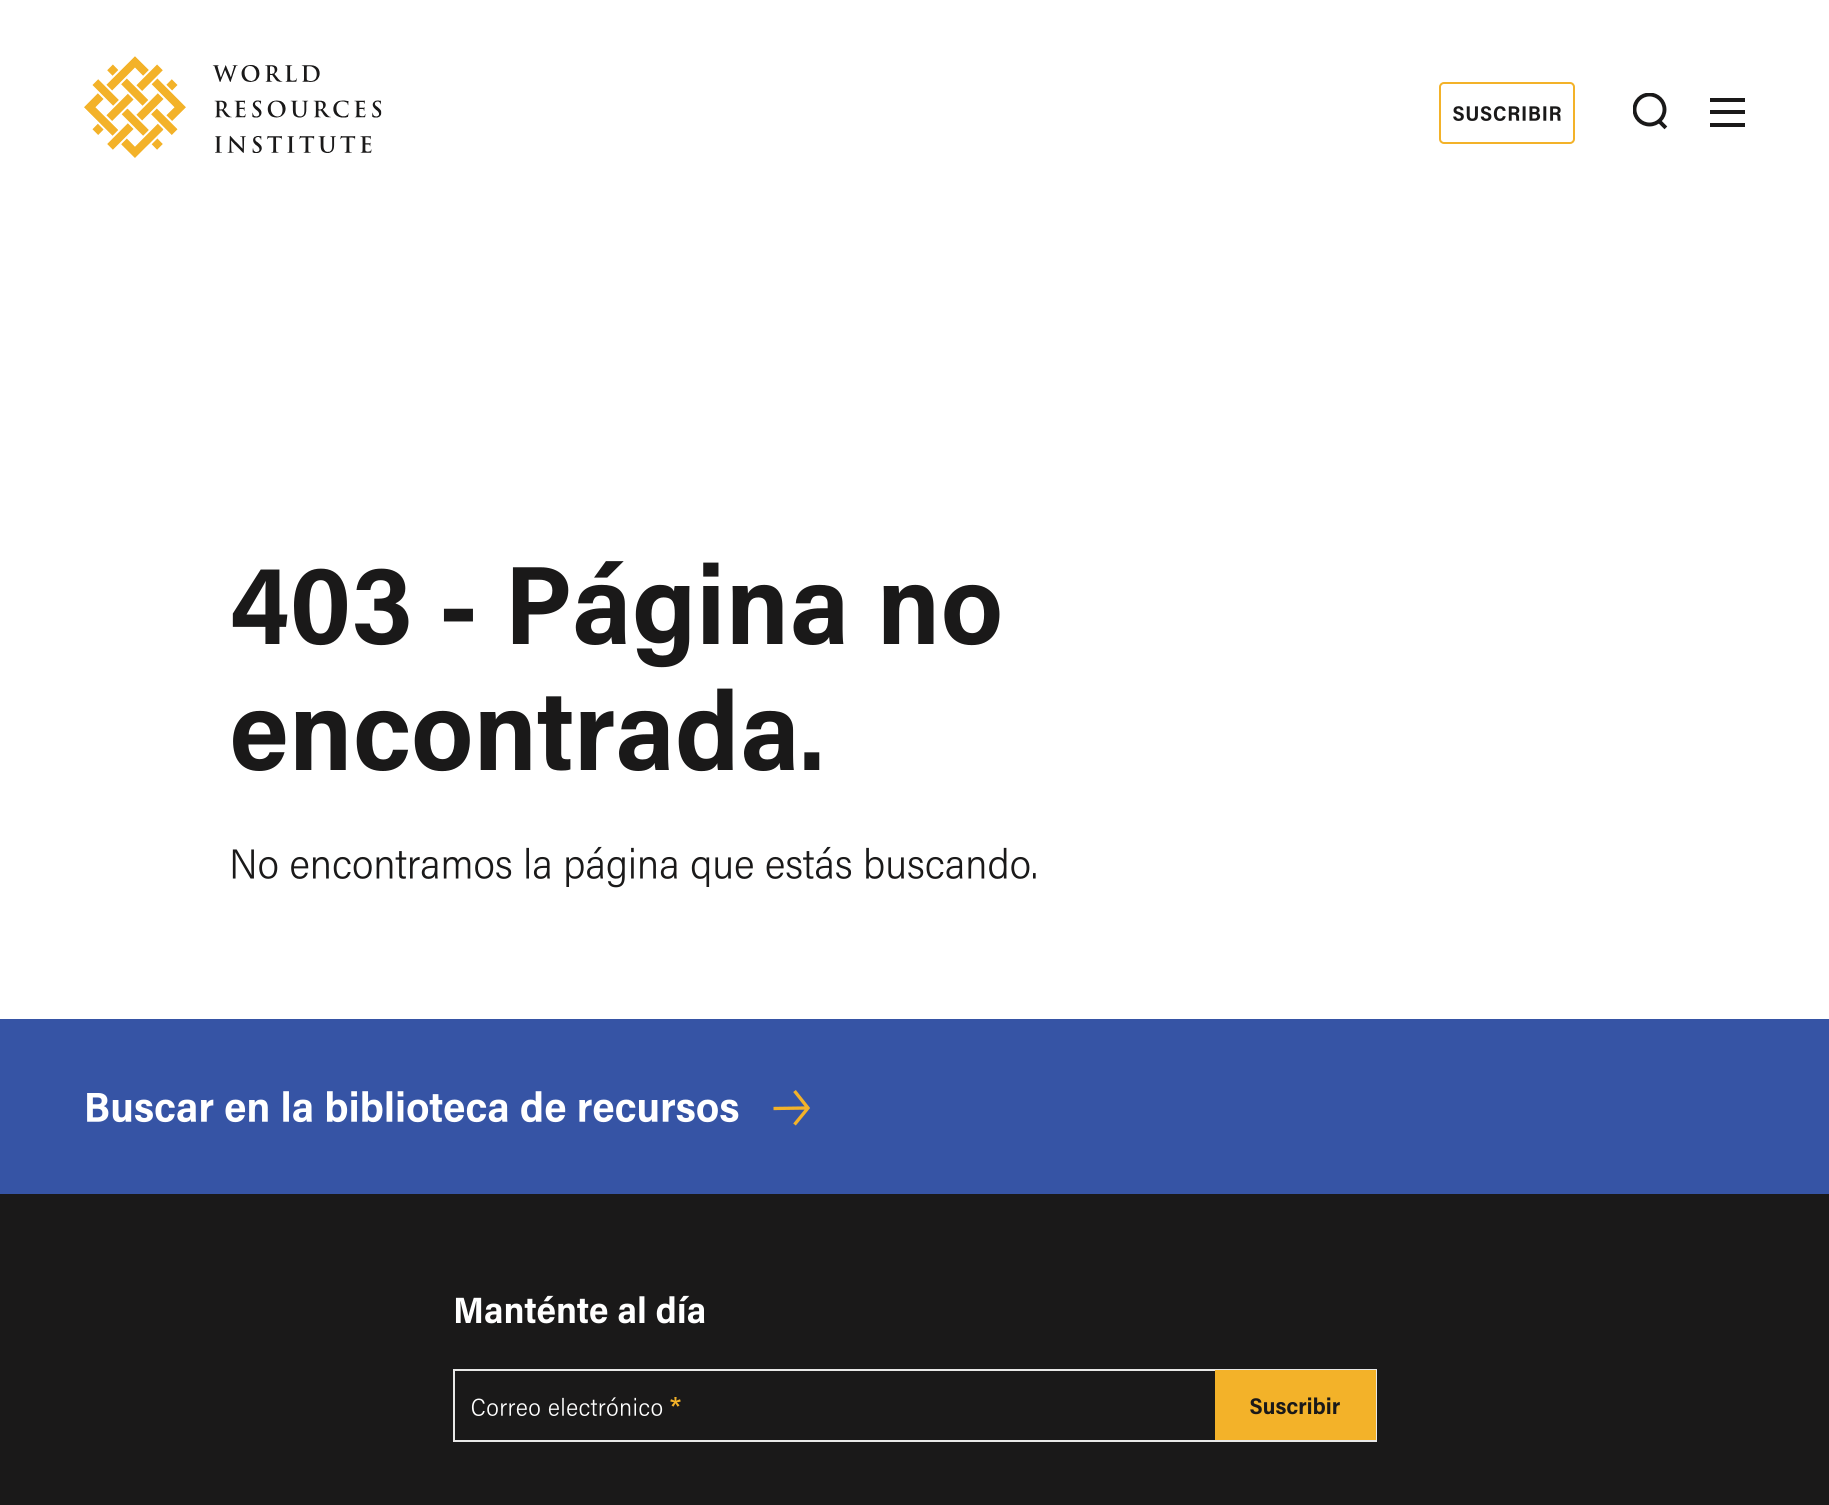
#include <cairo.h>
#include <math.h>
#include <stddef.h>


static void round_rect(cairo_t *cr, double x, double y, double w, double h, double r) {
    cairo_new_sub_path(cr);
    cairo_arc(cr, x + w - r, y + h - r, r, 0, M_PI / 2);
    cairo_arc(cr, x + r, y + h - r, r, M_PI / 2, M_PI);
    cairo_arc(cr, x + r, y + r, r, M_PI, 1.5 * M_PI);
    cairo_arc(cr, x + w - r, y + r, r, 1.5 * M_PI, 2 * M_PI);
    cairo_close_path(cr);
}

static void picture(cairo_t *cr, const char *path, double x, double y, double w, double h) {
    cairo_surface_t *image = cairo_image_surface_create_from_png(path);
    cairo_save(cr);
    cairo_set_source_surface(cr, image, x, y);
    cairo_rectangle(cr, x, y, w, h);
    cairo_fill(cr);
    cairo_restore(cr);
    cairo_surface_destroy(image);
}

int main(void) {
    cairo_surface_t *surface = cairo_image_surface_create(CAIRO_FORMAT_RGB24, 1829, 1505);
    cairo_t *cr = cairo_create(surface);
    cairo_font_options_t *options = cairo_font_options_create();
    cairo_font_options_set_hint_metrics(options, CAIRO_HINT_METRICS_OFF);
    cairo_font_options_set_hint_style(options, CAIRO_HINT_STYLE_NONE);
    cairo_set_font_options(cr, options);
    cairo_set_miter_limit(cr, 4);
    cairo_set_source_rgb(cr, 1, 1, 1);
    cairo_paint(cr);
    picture(cr, "img1.png", 84, 56, 298, 102);
    round_rect(cr, 1440, 83, 134, 60, 4);
    cairo_set_source_rgb(cr, 0.953, 0.698, 0.161);
    cairo_stroke(cr);
    picture(cr, "img2.png", 1453, 106, 108, 15);
    cairo_save(cr);
    cairo_rectangle(cr, 1633, 93, 35, 38);
    cairo_clip(cr);
    cairo_arc(cr, 1649.5, 109.5, 15, 0, 2 * M_PI);
    cairo_set_source_rgb(cr, 0.102, 0.098, 0.098);
    cairo_set_line_width(cr, 3.9);
    cairo_stroke(cr);
    cairo_restore(cr);
    cairo_new_path(cr);
    cairo_move_to(cr, 1660, 122);
    cairo_line_to(cr, 1664.5, 126.5);
    cairo_set_source_rgb(cr, 0.102, 0.098, 0.098);
    cairo_set_line_width(cr, 3.9);
    cairo_set_line_cap(cr, CAIRO_LINE_CAP_SQUARE);
    cairo_stroke(cr);
    cairo_rectangle(cr, 1710, 110, 35, 4);
    cairo_fill(cr);
    cairo_rectangle(cr, 1710, 98, 35, 4);
    cairo_fill(cr);
    cairo_rectangle(cr, 1710, 123, 35, 4);
    cairo_fill(cr);
    picture(cr, "img3.png", 232, 561, 768, 107);
    picture(cr, "img4.png", 233, 688, 587, 84);
    picture(cr, "img5.png", 232, 846, 804, 42);
    cairo_set_source_rgb(cr, 0.212, 0.329, 0.647);
    cairo_rectangle(cr, 0, 1019, 1829, 175);
    cairo_fill(cr);
    picture(cr, "img6.png", 87, 1091, 652, 32);
    cairo_new_path(cr);
    cairo_move_to(cr, 794.5, 1091);
    cairo_line_to(cr, 808, 1108);
    cairo_line_to(cr, 794.5, 1124.5);
    cairo_move_to(cr, 806.5, 1108);
    cairo_line_to(cr, 773.5, 1108.5);
    cairo_set_source_rgb(cr, 0.953, 0.698, 0.161);
    cairo_set_line_width(cr, 3.3);
    cairo_set_line_cap(cr, CAIRO_LINE_CAP_BUTT);
    cairo_stroke(cr);
    cairo_set_source_rgb(cr, 0.102, 0.098, 0.098);
    cairo_rectangle(cr, 0, 1194, 1829, 311);
    cairo_fill(cr);
    picture(cr, "img7.png", 455, 1295, 250, 29);
    cairo_rectangle(cr, 454, 1370, 922, 71);
    cairo_set_source_rgb(cr, 0.91, 0.91, 0.906);
    cairo_set_line_width(cr, 2);
    cairo_stroke(cr);
    picture(cr, "img8.png", 471, 1397, 192, 19);
    picture(cr, "img9.png", 670, 1397, 11, 10);
    cairo_set_source_rgb(cr, 0.953, 0.698, 0.161);
    cairo_rectangle(cr, 1215, 1370, 161, 70);
    cairo_fill(cr);
    picture(cr, "img10.png", 1250, 1397, 90, 18);
    cairo_surface_write_to_png(surface, "page.png");
    cairo_font_options_destroy(options);
    cairo_destroy(cr);
    cairo_surface_destroy(surface);
    return 0;
}
